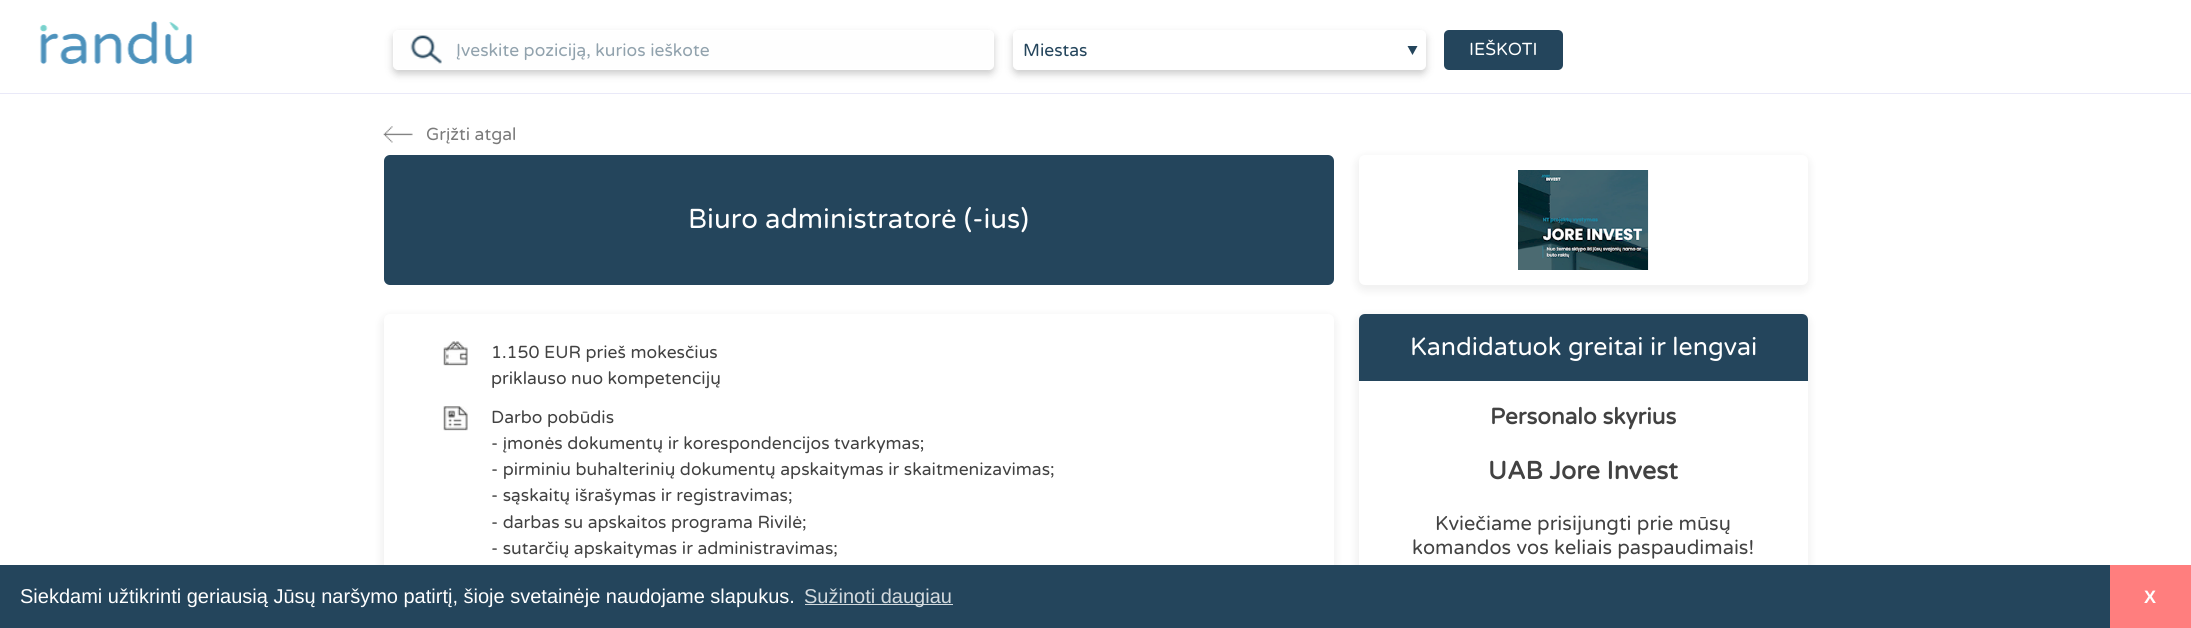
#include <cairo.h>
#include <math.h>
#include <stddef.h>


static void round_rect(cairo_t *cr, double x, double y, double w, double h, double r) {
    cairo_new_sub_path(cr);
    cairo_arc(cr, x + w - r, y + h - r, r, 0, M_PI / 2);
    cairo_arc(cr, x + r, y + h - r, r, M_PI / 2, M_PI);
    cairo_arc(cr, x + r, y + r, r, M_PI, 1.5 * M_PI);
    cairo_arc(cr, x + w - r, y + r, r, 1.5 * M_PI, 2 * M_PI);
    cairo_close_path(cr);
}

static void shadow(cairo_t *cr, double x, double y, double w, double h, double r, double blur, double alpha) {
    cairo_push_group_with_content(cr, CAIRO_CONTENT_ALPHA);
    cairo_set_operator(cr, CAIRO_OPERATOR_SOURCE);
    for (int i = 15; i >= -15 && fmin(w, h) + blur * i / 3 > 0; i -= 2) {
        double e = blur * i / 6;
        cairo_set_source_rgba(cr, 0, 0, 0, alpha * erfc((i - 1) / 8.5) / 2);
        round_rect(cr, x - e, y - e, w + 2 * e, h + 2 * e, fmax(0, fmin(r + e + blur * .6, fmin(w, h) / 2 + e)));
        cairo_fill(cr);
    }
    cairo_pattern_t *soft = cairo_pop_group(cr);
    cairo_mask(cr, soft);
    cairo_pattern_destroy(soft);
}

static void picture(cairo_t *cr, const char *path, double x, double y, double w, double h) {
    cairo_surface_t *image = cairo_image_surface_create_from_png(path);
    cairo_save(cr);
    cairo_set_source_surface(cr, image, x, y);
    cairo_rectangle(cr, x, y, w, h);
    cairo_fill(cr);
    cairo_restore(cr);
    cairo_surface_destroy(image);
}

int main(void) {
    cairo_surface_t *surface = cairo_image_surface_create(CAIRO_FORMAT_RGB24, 2191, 628);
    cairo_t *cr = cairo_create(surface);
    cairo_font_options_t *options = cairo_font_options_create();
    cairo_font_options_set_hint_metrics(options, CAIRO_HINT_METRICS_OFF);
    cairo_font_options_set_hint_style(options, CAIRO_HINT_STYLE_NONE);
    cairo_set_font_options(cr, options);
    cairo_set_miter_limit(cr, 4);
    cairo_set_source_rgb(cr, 1, 1, 1);
    cairo_paint(cr);
    cairo_set_source_rgb(cr, 0.914, 0.914, 0.969);
    cairo_rectangle(cr, 0, 93, 2191, 1);
    cairo_fill(cr);
    picture(cr, "img1.png", 39, 21, 154, 44);
    cairo_set_source_rgb(cr, 0, 0, 0);
    shadow(cr, 393, 34, 601, 40, 5, 4, 0.2);
    cairo_set_source_rgb(cr, 0.996, 0.996, 0.996);
    round_rect(cr, 393.5, 30.5, 600, 39, 4.5);
    cairo_fill_preserve(cr);
    cairo_set_source_rgb(cr, 1, 1, 1);
    cairo_set_line_width(cr, 1);
    cairo_stroke(cr);
    picture(cr, "img2.png", 410, 35, 32, 29);
    cairo_select_font_face(cr, "Varela Round", CAIRO_FONT_SLANT_NORMAL, CAIRO_FONT_WEIGHT_NORMAL);
    cairo_set_font_size(cr, 17.5);
    cairo_set_source_rgb(cr, 0.569, 0.635, 0.678);
    cairo_move_to(cr, 456, 56);
    cairo_show_text(cr, "Įveskite poziciją, kurios ieškote");
    cairo_set_source_rgb(cr, 0, 0, 0);
    shadow(cr, 1013, 34, 413, 40, 5, 4, 0.2);
    cairo_set_source_rgb(cr, 1, 1, 1);
    round_rect(cr, 1013.5, 30.5, 412, 39, 4.5);
    cairo_fill_preserve(cr);
    cairo_stroke(cr);
    cairo_set_source_rgb(cr, 0.141, 0.271, 0.361);
    cairo_move_to(cr, 1023, 56);
    cairo_show_text(cr, "Miestas");
    cairo_new_path(cr);
    cairo_move_to(cr, 1407.5, 46);
    cairo_line_to(cr, 1417.5, 46);
    cairo_line_to(cr, 1412.5, 55);
    cairo_close_path(cr);
    cairo_fill(cr);
    round_rect(cr, 1444, 30, 119, 40, 5);
    cairo_fill(cr);
    cairo_set_source_rgb(cr, 1, 1, 1);
    cairo_move_to(cr, 1469, 55);
    cairo_show_text(cr, "IEŠKOTI");
    picture(cr, "img3.png", 383, 126, 30, 17);
    cairo_set_source_rgb(cr, 0.482, 0.482, 0.482);
    cairo_move_to(cr, 426, 140);
    cairo_show_text(cr, "Grįžti atgal");
    cairo_set_source_rgb(cr, 0.141, 0.271, 0.361);
    round_rect(cr, 384, 155, 950, 130, 6);
    cairo_fill(cr);
    cairo_set_font_size(cr, 27.5);
    cairo_set_source_rgb(cr, 1, 1, 1);
    cairo_move_to(cr, 688, 228);
    cairo_show_text(cr, "Biuro administratorė (-ius)");
    cairo_set_source_rgb(cr, 0.635, 0.635, 0.635);
    shadow(cr, 1356, 156, 454, 135, 9, 4, 0.16);
    cairo_set_source_rgb(cr, 1, 1, 1);
    round_rect(cr, 1359, 155, 449, 130, 6);
    cairo_fill(cr);
    picture(cr, "img4.png", 1518, 170, 131, 100);
    cairo_set_source_rgb(cr, 0.635, 0.635, 0.635);
    shadow(cr, 381, 315, 955, 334, 9, 4, 0.16);
    cairo_set_source_rgb(cr, 1, 1, 1);
    round_rect(cr, 384, 314, 950, 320, 6);
    cairo_fill(cr);
    picture(cr, "img5.png", 443, 341, 25, 25);
    cairo_set_font_size(cr, 17.5);
    cairo_set_source_rgb(cr, 0.259, 0.259, 0.259);
    cairo_move_to(cr, 491, 358);
    cairo_show_text(cr, "1.150 EUR prieš mokesčius");
    cairo_move_to(cr, 491, 384);
    cairo_show_text(cr, "priklauso nuo kompetencijų");
    picture(cr, "img6.png", 443, 406, 25, 25);
    cairo_move_to(cr, 491, 423);
    cairo_show_text(cr, "Darbo pobūdis");
    cairo_move_to(cr, 491, 449);
    cairo_show_text(cr, "- įmonės dokumentų ir korespondencijos tvarkymas;");
    cairo_move_to(cr, 491, 475);
    cairo_show_text(cr, "- pirminiu buhalterinių dokumentų apskaitymas ir skaitmenizavimas;");
    cairo_move_to(cr, 491, 501);
    cairo_show_text(cr, "- sąskaitų išrašymas ir registravimas;");
    cairo_move_to(cr, 491, 528);
    cairo_show_text(cr, "- darbas su apskaitos programa Rivilė;");
    cairo_move_to(cr, 491, 554);
    cairo_show_text(cr, "- sutarčių apskaitymas ir administravimas;");
    cairo_set_source_rgb(cr, 0.635, 0.635, 0.635);
    shadow(cr, 1356, 315, 454, 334, 9, 4, 0.16);
    cairo_set_source_rgb(cr, 1, 1, 1);
    round_rect(cr, 1359, 314, 449, 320, 6);
    cairo_fill(cr);
    cairo_set_source_rgb(cr, 0.141, 0.271, 0.361);
    cairo_new_path(cr);
    cairo_move_to(cr, 1365, 314);
    cairo_line_to(cr, 1802, 314);
    cairo_curve_to(cr, 1805.5, 314, 1808, 316.5, 1808, 320);
    cairo_line_to(cr, 1808, 381);
    cairo_line_to(cr, 1359, 381);
    cairo_line_to(cr, 1359, 320);
    cairo_curve_to(cr, 1359, 316.5, 1361.5, 314, 1365, 314);
    cairo_close_path(cr);
    cairo_fill(cr);
    cairo_set_font_size(cr, 25);
    cairo_set_source_rgb(cr, 1, 1, 1);
    cairo_move_to(cr, 1410, 355);
    cairo_show_text(cr, "Kandidatuok greitai ir lengvai");
    cairo_select_font_face(cr, "Varela Round", CAIRO_FONT_SLANT_NORMAL, CAIRO_FONT_WEIGHT_BOLD);
    cairo_set_font_size(cr, 22.5);
    cairo_set_source_rgb(cr, 0.259, 0.259, 0.259);
    cairo_move_to(cr, 1490, 424);
    cairo_show_text(cr, "Personalo skyrius");
    cairo_set_font_size(cr, 25);
    cairo_move_to(cr, 1488, 479);
    cairo_show_text(cr, "UAB Jore Invest");
    cairo_select_font_face(cr, "Varela Round", CAIRO_FONT_SLANT_NORMAL, CAIRO_FONT_WEIGHT_NORMAL);
    cairo_set_font_size(cr, 20);
    cairo_move_to(cr, 1435, 530);
    cairo_show_text(cr, "Kviečiame prisijungti prie mūsų");
    cairo_move_to(cr, 1412, 554);
    cairo_show_text(cr, "komandos vos keliais paspaudimais!");
    cairo_set_source_rgb(cr, 0.141, 0.271, 0.361);
    cairo_rectangle(cr, 0, 565, 2110, 63);
    cairo_fill(cr);
    cairo_select_font_face(cr, "Liberation Sans", CAIRO_FONT_SLANT_NORMAL, CAIRO_FONT_WEIGHT_NORMAL);
    cairo_set_source_rgb(cr, 1, 1, 1);
    cairo_move_to(cr, 20, 603);
    cairo_show_text(cr, "Siekdami užtikrinti geriausią Jūsų naršymo patirtį, šioje svetainėje naudojame slapukus.");
    cairo_set_source_rgb(cr, 0.827, 0.855, 0.871);
    cairo_rectangle(cr, 805, 604, 148, 1);
    cairo_fill(cr);
    cairo_move_to(cr, 804, 603);
    cairo_show_text(cr, "Sužinoti daugiau");
    cairo_set_source_rgb(cr, 1, 0.494, 0.494);
    cairo_rectangle(cr, 2110, 565, 81, 63);
    cairo_fill(cr);
    cairo_select_font_face(cr, "Liberation Sans", CAIRO_FONT_SLANT_NORMAL, CAIRO_FONT_WEIGHT_BOLD);
    cairo_set_font_size(cr, 18);
    cairo_set_source_rgb(cr, 1, 1, 1);
    cairo_move_to(cr, 2144, 603);
    cairo_show_text(cr, "X");
    cairo_surface_write_to_png(surface, "page.png");
    cairo_font_options_destroy(options);
    cairo_destroy(cr);
    cairo_surface_destroy(surface);
    return 0;
}
